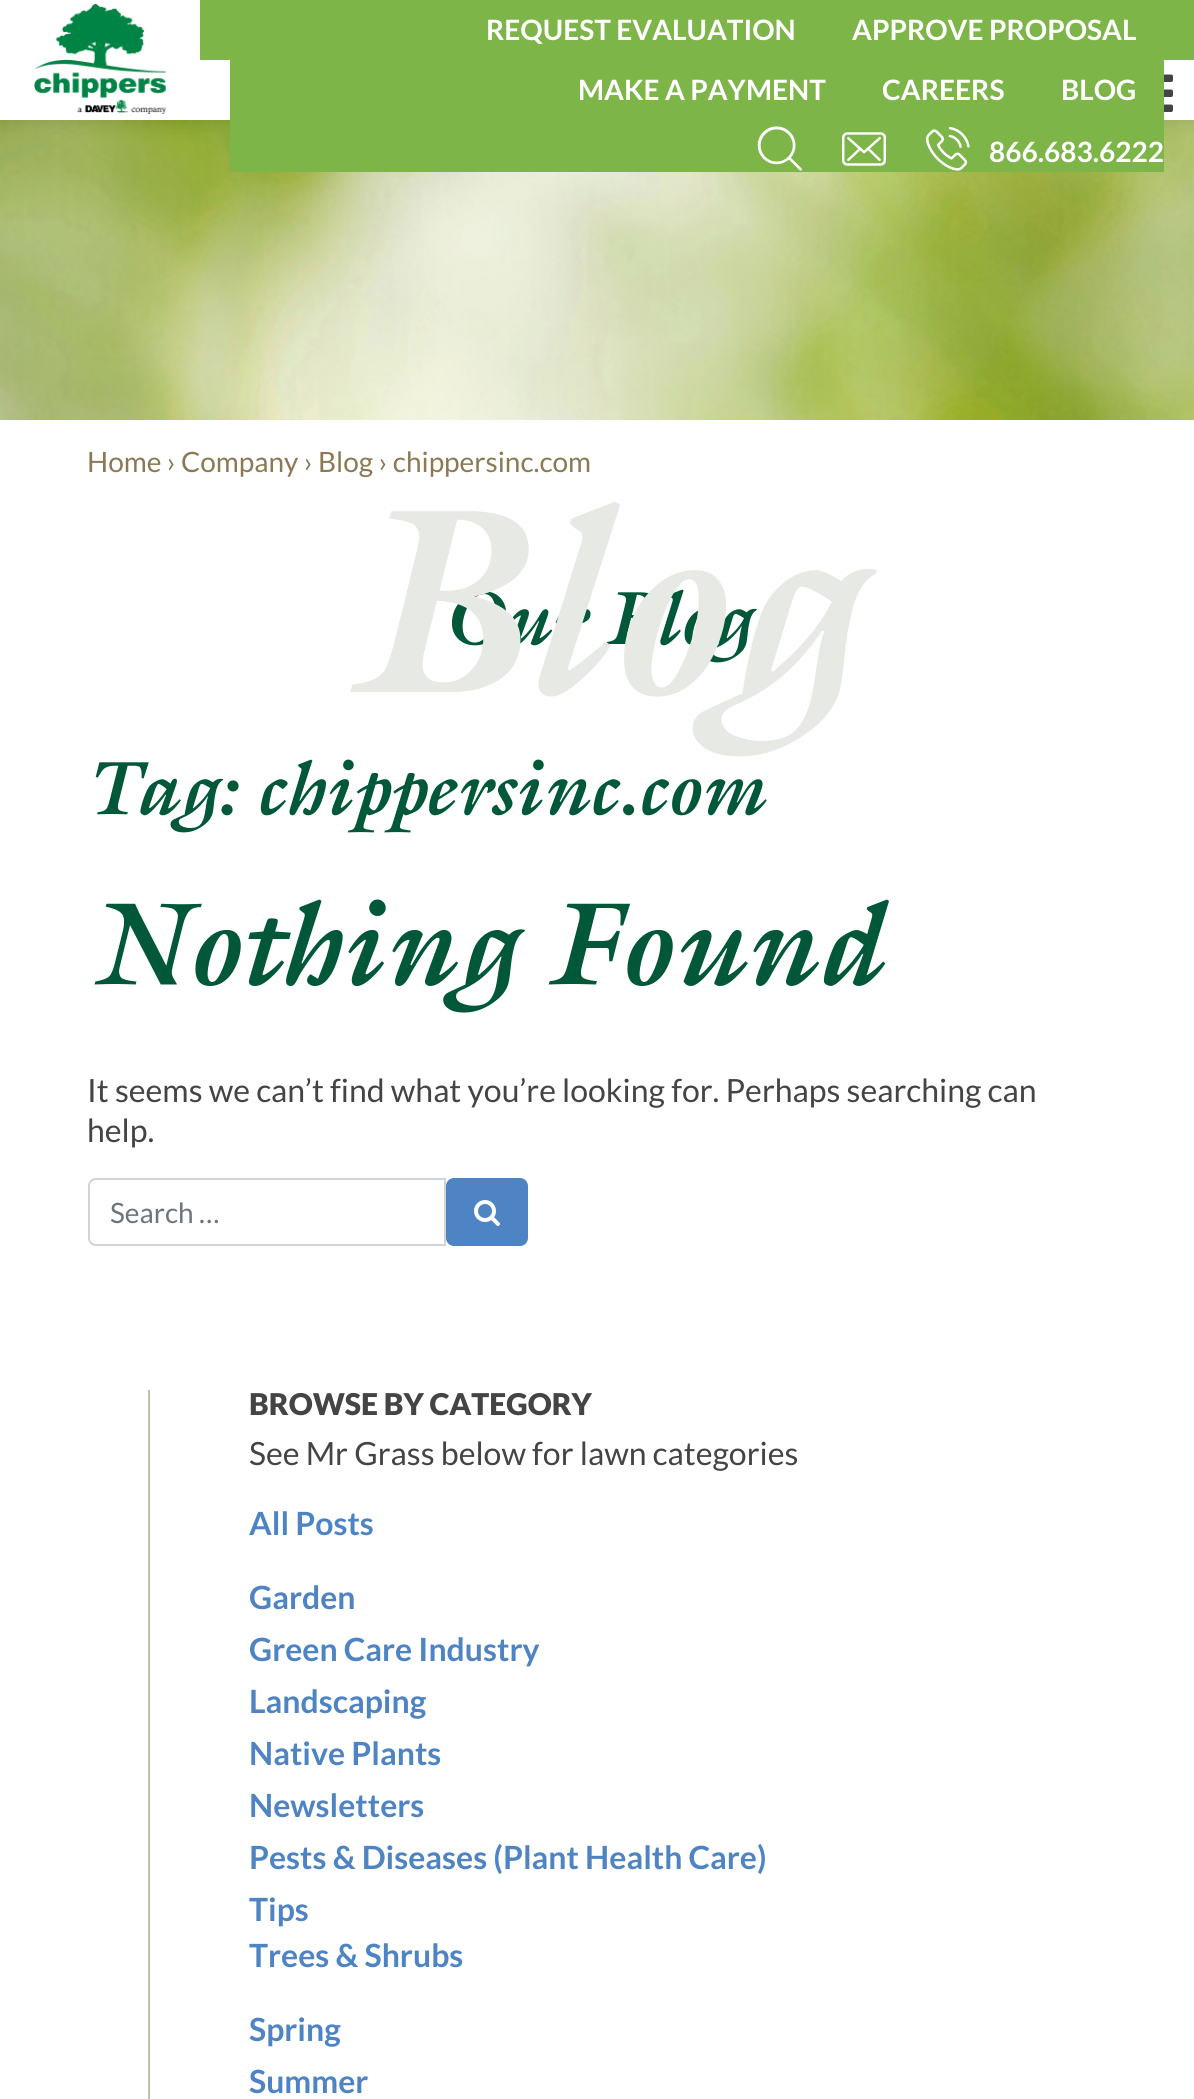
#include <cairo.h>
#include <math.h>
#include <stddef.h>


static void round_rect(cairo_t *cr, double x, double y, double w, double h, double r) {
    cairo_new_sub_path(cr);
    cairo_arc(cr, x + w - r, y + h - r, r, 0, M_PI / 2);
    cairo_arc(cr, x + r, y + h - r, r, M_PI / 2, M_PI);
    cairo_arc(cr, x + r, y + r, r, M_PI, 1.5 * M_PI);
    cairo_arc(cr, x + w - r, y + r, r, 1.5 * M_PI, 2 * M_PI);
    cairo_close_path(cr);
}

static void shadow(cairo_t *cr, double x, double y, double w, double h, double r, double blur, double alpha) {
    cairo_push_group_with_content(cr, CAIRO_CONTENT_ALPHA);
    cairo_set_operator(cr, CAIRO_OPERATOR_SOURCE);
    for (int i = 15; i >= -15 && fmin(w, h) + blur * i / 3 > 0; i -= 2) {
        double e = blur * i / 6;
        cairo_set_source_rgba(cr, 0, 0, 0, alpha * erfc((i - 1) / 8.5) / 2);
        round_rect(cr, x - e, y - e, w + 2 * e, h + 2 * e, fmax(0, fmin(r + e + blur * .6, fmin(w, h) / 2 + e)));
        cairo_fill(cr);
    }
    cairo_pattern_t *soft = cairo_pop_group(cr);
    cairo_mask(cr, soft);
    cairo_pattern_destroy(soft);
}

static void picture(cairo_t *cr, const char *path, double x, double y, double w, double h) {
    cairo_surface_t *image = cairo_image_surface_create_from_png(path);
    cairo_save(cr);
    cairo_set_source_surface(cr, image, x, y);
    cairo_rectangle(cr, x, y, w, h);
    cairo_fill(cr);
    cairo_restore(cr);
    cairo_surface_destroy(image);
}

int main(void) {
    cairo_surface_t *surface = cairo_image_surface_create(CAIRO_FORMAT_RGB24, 1194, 2099);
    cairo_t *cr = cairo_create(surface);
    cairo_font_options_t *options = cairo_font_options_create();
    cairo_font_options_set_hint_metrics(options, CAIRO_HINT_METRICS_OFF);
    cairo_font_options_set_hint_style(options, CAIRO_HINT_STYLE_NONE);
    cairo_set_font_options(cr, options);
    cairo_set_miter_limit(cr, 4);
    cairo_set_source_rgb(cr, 1, 1, 1);
    cairo_paint(cr);
    picture(cr, "img6.png", 0, 120, 1194, 300);
    cairo_set_source_rgb(cr, 0, 0, 0);
    shadow(cr, -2, 2, 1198, 124, 0, 8, 0.1);
    cairo_set_source_rgb(cr, 1, 1, 1);
    cairo_rectangle(cr, 0, 0, 200, 120);
    cairo_fill(cr);
    picture(cr, "img1.png", 34, 4, 132, 110);
    cairo_set_source_rgb(cr, 0.49, 0.71, 0.286);
    cairo_rectangle(cr, 200, 0, 994, 60);
    cairo_fill(cr);
    cairo_set_source_rgb(cr, 1, 1, 1);
    cairo_rectangle(cr, 200, 60, 994, 60);
    cairo_fill(cr);
    cairo_set_source_rgb(cr, 0.49, 0.71, 0.286);
    cairo_rectangle(cr, 230, 60, 934, 112);
    cairo_fill(cr);
    cairo_select_font_face(cr, "Lato", CAIRO_FONT_SLANT_NORMAL, CAIRO_FONT_WEIGHT_BOLD);
    cairo_set_font_size(cr, 28);
    cairo_set_source_rgb(cr, 1, 1, 1);
    cairo_move_to(cr, 486, 40);
    cairo_show_text(cr, "REQUEST EVALUATION");
    cairo_move_to(cr, 852, 40);
    cairo_show_text(cr, "APPROVE PROPOSAL");
    cairo_move_to(cr, 578, 100);
    cairo_show_text(cr, "MAKE A PAYMENT");
    cairo_move_to(cr, 882, 100);
    cairo_show_text(cr, "CAREERS");
    cairo_move_to(cr, 1061, 100);
    cairo_show_text(cr, "BLOG");
    picture(cr, "img2.png", 757, 126, 45, 45);
    picture(cr, "img3.png", 842, 132, 44, 34);
    picture(cr, "img4.png", 926, 126, 44, 45);
    cairo_move_to(cr, 989, 162);
    cairo_show_text(cr, "866.683.6222");
    picture(cr, "img5.png", 1164, 74, 9, 38);
    cairo_select_font_face(cr, "Lato", CAIRO_FONT_SLANT_NORMAL, CAIRO_FONT_WEIGHT_NORMAL);
    cairo_set_source_rgb(cr, 0.549, 0.475, 0.325);
    cairo_move_to(cr, 87, 472);
    cairo_show_text(cr, "Home › Company › Blog › chippersinc.com");
    cairo_select_font_face(cr, "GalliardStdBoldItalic", CAIRO_FONT_SLANT_NORMAL, CAIRO_FONT_WEIGHT_NORMAL);
    cairo_set_font_size(cr, 76);
    cairo_set_source_rgb(cr, 0, 0.345, 0.22);
    cairo_move_to(cr, 443, 644);
    cairo_show_text(cr, "Our Blog");
    cairo_set_font_size(cr, 266);
    cairo_set_source_rgb(cr, 0.906, 0.914, 0.894);
    cairo_move_to(cr, 342, 692);
    cairo_show_text(cr, "Blog");
    cairo_set_font_size(cr, 76);
    cairo_set_source_rgb(cr, 0, 0.345, 0.22);
    cairo_move_to(cr, 87, 814);
    cairo_show_text(cr, "Tag: chippersinc.com");
    cairo_set_font_size(cr, 118);
    cairo_move_to(cr, 87, 984);
    cairo_show_text(cr, "Nothing Found");
    cairo_select_font_face(cr, "Lato", CAIRO_FONT_SLANT_NORMAL, CAIRO_FONT_WEIGHT_NORMAL);
    cairo_set_font_size(cr, 32);
    cairo_set_source_rgb(cr, 0.267, 0.267, 0.267);
    cairo_move_to(cr, 87, 1102);
    cairo_show_text(cr, "It seems we can’t find what you’re looking for. Perhaps searching can");
    cairo_move_to(cr, 87, 1142);
    cairo_show_text(cr, "help.");
    cairo_new_path(cr);
    cairo_move_to(cr, 96, 1179);
    cairo_line_to(cr, 445, 1179);
    cairo_line_to(cr, 445, 1245);
    cairo_line_to(cr, 96, 1245);
    cairo_curve_to(cr, 92, 1245, 89, 1242, 89, 1238);
    cairo_line_to(cr, 89, 1186);
    cairo_curve_to(cr, 89, 1182, 92, 1179, 96, 1179);
    cairo_close_path(cr);
    cairo_set_source_rgb(cr, 0.808, 0.831, 0.855);
    cairo_stroke(cr);
    cairo_set_font_size(cr, 28);
    cairo_set_source_rgb(cr, 0.424, 0.459, 0.49);
    cairo_move_to(cr, 110, 1223);
    cairo_show_text(cr, "Search …");
    cairo_set_source_rgb(cr, 0.306, 0.518, 0.769);
    round_rect(cr, 447, 1179, 80, 66, 7);
    cairo_fill_preserve(cr);
    cairo_stroke(cr);
    picture(cr, "img7.png", 474, 1200, 26, 26);
    cairo_set_source_rgb(cr, 0.776, 0.737, 0.663);
    cairo_rectangle(cr, 148, 1390, 2, 709);
    cairo_fill(cr);
    cairo_select_font_face(cr, "Lato Black", CAIRO_FONT_SLANT_NORMAL, CAIRO_FONT_WEIGHT_NORMAL);
    cairo_set_font_size(cr, 30);
    cairo_set_source_rgb(cr, 0.267, 0.267, 0.267);
    cairo_move_to(cr, 249, 1415);
    cairo_show_text(cr, "BROWSE BY CATEGORY");
    cairo_select_font_face(cr, "Lato", CAIRO_FONT_SLANT_NORMAL, CAIRO_FONT_WEIGHT_NORMAL);
    cairo_set_font_size(cr, 32);
    cairo_move_to(cr, 249, 1465);
    cairo_show_text(cr, "See Mr Grass below for lawn categories");
    cairo_select_font_face(cr, "Lato", CAIRO_FONT_SLANT_NORMAL, CAIRO_FONT_WEIGHT_BOLD);
    cairo_set_source_rgb(cr, 0.306, 0.518, 0.769);
    cairo_move_to(cr, 249, 1535);
    cairo_show_text(cr, "All Posts");
    cairo_move_to(cr, 249, 1609);
    cairo_show_text(cr, "Garden");
    cairo_move_to(cr, 249, 1661);
    cairo_show_text(cr, "Green Care Industry");
    cairo_move_to(cr, 249, 1713);
    cairo_show_text(cr, "Landscaping");
    cairo_move_to(cr, 249, 1765);
    cairo_show_text(cr, "Native Plants");
    cairo_move_to(cr, 249, 1817);
    cairo_show_text(cr, "Newsletters");
    cairo_move_to(cr, 249, 1869);
    cairo_show_text(cr, "Pests & Diseases (Plant Health Care)");
    cairo_move_to(cr, 249, 1921);
    cairo_show_text(cr, "Tips");
    cairo_move_to(cr, 249, 1967);
    cairo_show_text(cr, "Trees & Shrubs");
    cairo_move_to(cr, 249, 2041);
    cairo_show_text(cr, "Spring");
    cairo_move_to(cr, 249, 2093);
    cairo_show_text(cr, "Summer");
    cairo_surface_write_to_png(surface, "page.png");
    cairo_font_options_destroy(options);
    cairo_destroy(cr);
    cairo_surface_destroy(surface);
    return 0;
}
